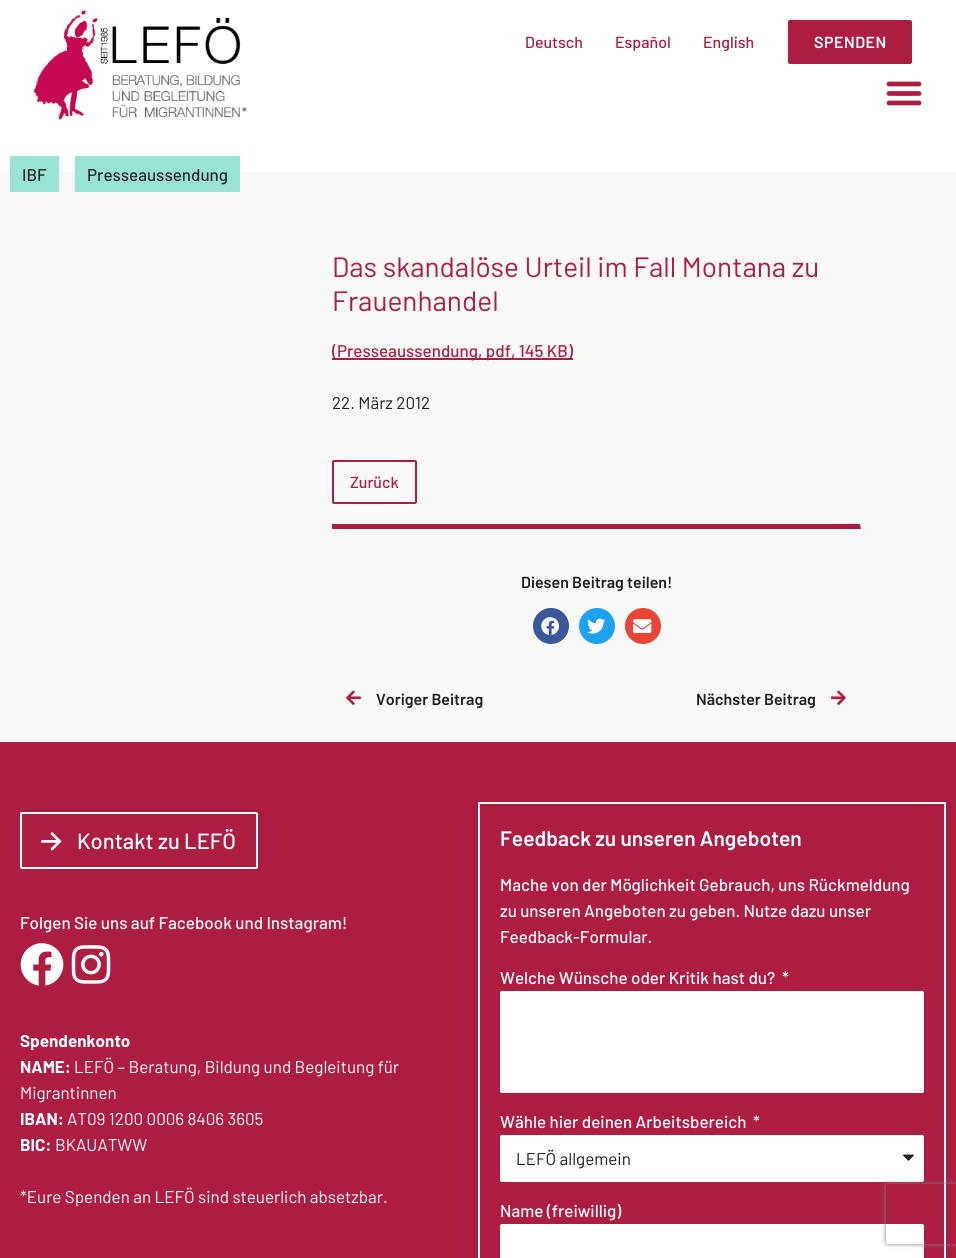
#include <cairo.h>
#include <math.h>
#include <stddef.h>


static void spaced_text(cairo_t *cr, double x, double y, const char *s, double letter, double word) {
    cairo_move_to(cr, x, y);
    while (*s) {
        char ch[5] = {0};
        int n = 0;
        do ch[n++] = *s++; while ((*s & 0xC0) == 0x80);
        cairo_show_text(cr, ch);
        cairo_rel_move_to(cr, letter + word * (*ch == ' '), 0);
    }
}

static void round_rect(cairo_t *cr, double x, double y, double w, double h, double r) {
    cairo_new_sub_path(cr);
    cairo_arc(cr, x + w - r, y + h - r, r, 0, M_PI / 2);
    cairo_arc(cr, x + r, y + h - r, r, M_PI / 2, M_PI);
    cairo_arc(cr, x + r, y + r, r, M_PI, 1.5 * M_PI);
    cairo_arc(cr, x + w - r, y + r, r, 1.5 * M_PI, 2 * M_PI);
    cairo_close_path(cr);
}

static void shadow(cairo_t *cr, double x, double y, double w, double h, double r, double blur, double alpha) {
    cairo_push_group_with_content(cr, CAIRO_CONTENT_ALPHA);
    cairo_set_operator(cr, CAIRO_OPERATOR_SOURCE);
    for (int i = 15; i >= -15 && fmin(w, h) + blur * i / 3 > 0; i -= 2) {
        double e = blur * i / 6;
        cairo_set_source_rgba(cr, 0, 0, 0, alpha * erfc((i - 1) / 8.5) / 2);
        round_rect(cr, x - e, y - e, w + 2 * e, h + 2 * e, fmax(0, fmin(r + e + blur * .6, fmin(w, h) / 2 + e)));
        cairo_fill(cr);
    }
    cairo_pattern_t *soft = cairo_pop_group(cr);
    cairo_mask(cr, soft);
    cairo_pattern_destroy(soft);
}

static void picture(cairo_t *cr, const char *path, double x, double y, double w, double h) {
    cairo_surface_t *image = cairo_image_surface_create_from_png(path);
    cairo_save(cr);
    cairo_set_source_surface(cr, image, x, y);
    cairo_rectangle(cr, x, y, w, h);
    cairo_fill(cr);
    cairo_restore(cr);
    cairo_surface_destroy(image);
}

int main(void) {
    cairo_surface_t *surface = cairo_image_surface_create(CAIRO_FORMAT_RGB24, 956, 1258);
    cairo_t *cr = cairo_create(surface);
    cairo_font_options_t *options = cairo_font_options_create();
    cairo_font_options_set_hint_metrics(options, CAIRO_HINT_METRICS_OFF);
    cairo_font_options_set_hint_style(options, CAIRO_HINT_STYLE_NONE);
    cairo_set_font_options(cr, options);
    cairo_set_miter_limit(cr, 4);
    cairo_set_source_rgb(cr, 1, 1, 1);
    cairo_paint(cr);
    picture(cr, "img1.png", 33, 10, 214, 110);
    cairo_select_font_face(cr, "Barlow Medium", CAIRO_FONT_SLANT_NORMAL, CAIRO_FONT_WEIGHT_NORMAL);
    cairo_set_font_size(cr, 16);
    cairo_set_source_rgb(cr, 0.678, 0.114, 0.259);
    cairo_move_to(cr, 525, 48);
    cairo_show_text(cr, "Deutsch");
    cairo_move_to(cr, 615, 48);
    cairo_show_text(cr, "Español");
    cairo_move_to(cr, 703, 48);
    cairo_show_text(cr, "English");
    round_rect(cr, 789, 21, 122, 42, 1);
    cairo_fill_preserve(cr);
    cairo_stroke(cr);
    cairo_select_font_face(cr, "Barlow SemiBold", CAIRO_FONT_SLANT_NORMAL, CAIRO_FONT_WEIGHT_NORMAL);
    cairo_set_source_rgb(cr, 1, 1, 1);
    spaced_text(cr, 814, 48, "SPENDEN", 0.5, 0);
    picture(cr, "img2.png", 886, 81, 36, 25);
    cairo_set_source_rgb(cr, 0.976, 0.973, 0.969);
    cairo_rectangle(cr, 0, 172, 956, 570);
    cairo_fill(cr);
    cairo_set_source_rgb(cr, 0.596, 0.89, 0.827);
    cairo_rectangle(cr, 10, 156, 49, 36);
    cairo_fill(cr);
    cairo_select_font_face(cr, "Barlow Medium", CAIRO_FONT_SLANT_NORMAL, CAIRO_FONT_WEIGHT_NORMAL);
    cairo_set_font_size(cr, 17);
    cairo_set_source_rgb(cr, 0.149, 0.153, 0.153);
    cairo_move_to(cr, 22, 181);
    cairo_show_text(cr, "IBF");
    cairo_set_source_rgb(cr, 0.596, 0.89, 0.827);
    cairo_rectangle(cr, 75, 156, 165, 36);
    cairo_fill(cr);
    cairo_set_source_rgb(cr, 0.149, 0.153, 0.153);
    cairo_move_to(cr, 87, 181);
    cairo_show_text(cr, "Presseaussendung");
    cairo_select_font_face(cr, "Barlow", CAIRO_FONT_SLANT_NORMAL, CAIRO_FONT_WEIGHT_NORMAL);
    cairo_set_font_size(cr, 28);
    cairo_set_source_rgb(cr, 0.678, 0.114, 0.259);
    cairo_move_to(cr, 332, 277);
    cairo_show_text(cr, "Das skandalöse Urteil im Fall Montana zu");
    cairo_move_to(cr, 332, 311);
    cairo_show_text(cr, "Frauenhandel");
    cairo_rectangle(cr, 332, 358, 241, 2);
    cairo_fill(cr);
    cairo_select_font_face(cr, "Barlow Medium", CAIRO_FONT_SLANT_NORMAL, CAIRO_FONT_WEIGHT_NORMAL);
    cairo_set_font_size(cr, 17);
    cairo_move_to(cr, 332, 357);
    cairo_show_text(cr, "(Presseaussendung, pdf, 145 KB)");
    cairo_select_font_face(cr, "Barlow", CAIRO_FONT_SLANT_NORMAL, CAIRO_FONT_WEIGHT_NORMAL);
    cairo_set_source_rgb(cr, 0.118, 0.118, 0.118);
    cairo_move_to(cr, 332, 409);
    cairo_show_text(cr, "22. März 2012");
    round_rect(cr, 333, 461, 83, 42, 1);
    cairo_set_source_rgb(cr, 0.678, 0.114, 0.259);
    cairo_stroke(cr);
    cairo_select_font_face(cr, "Barlow Medium", CAIRO_FONT_SLANT_NORMAL, CAIRO_FONT_WEIGHT_NORMAL);
    cairo_set_font_size(cr, 16);
    cairo_move_to(cr, 350, 488);
    cairo_show_text(cr, "Zurück");
    cairo_set_source_rgb(cr, 0.933, 0.933, 0.933);
    cairo_new_path(cr);
    cairo_move_to(cr, 861, 524);
    cairo_line_to(cr, 861, 529);
    cairo_line_to(cr, 860, 524);
    cairo_close_path(cr);
    cairo_fill(cr);
    cairo_set_source_rgb(cr, 0.678, 0.114, 0.259);
    cairo_new_path(cr);
    cairo_move_to(cr, 861, 529);
    cairo_line_to(cr, 332, 529);
    cairo_line_to(cr, 332, 524);
    cairo_line_to(cr, 860, 524);
    cairo_close_path(cr);
    cairo_fill(cr);
    cairo_select_font_face(cr, "Barlow SemiBold", CAIRO_FONT_SLANT_NORMAL, CAIRO_FONT_WEIGHT_NORMAL);
    cairo_set_source_rgb(cr, 0.118, 0.118, 0.118);
    cairo_move_to(cr, 521, 588);
    cairo_show_text(cr, "Diesen Beitrag teilen!");
    cairo_set_source_rgb(cr, 0.231, 0.349, 0.596);
    cairo_new_path(cr);
    cairo_arc(cr, 551, 626, 18, 0, 2 * M_PI);
    cairo_fill(cr);
    picture(cr, "img3.png", 541, 617, 19, 18);
    cairo_set_source_rgb(cr, 0.114, 0.631, 0.949);
    cairo_arc(cr, 597, 626, 18, 0, 2 * M_PI);
    cairo_fill(cr);
    picture(cr, "img4.png", 587, 618, 19, 16);
    cairo_set_source_rgb(cr, 0.918, 0.263, 0.208);
    cairo_arc(cr, 643, 626, 18, 0, 2 * M_PI);
    cairo_fill(cr);
    picture(cr, "img5.png", 633, 619, 19, 14);
    picture(cr, "img6.png", 346, 690, 15, 15);
    cairo_set_source_rgb(cr, 0.118, 0.118, 0.118);
    cairo_move_to(cr, 376, 705);
    cairo_show_text(cr, "Voriger Beitrag");
    cairo_move_to(cr, 696, 705);
    cairo_show_text(cr, "Nächster Beitrag");
    picture(cr, "img7.png", 831, 690, 15, 15);
    cairo_set_source_rgb(cr, 0.678, 0.114, 0.259);
    cairo_rectangle(cr, 0, 742, 956, 516);
    cairo_fill(cr);
    round_rect(cr, 21, 813, 236, 55, 1);
    cairo_set_source_rgb(cr, 1, 1, 1);
    cairo_stroke(cr);
    picture(cr, "img8.png", 41, 832, 21, 19);
    cairo_select_font_face(cr, "Barlow Medium", CAIRO_FONT_SLANT_NORMAL, CAIRO_FONT_WEIGHT_NORMAL);
    cairo_set_font_size(cr, 22);
    cairo_move_to(cr, 77, 849);
    cairo_show_text(cr, "Kontakt zu LEFÖ");
    cairo_set_font_size(cr, 17);
    cairo_move_to(cr, 20, 929);
    cairo_show_text(cr, "Folgen Sie uns auf Facebook und Instagram!");
    picture(cr, "img9.png", 20, 943, 44, 43);
    picture(cr, "img10.png", 71, 945, 40, 39);
    cairo_select_font_face(cr, "Barlow", CAIRO_FONT_SLANT_NORMAL, CAIRO_FONT_WEIGHT_BOLD);
    cairo_move_to(cr, 20, 1047);
    cairo_show_text(cr, "Spendenkonto");
    cairo_move_to(cr, 20, 1073);
    cairo_show_text(cr, "NAME:");
    cairo_select_font_face(cr, "Barlow", CAIRO_FONT_SLANT_NORMAL, CAIRO_FONT_WEIGHT_NORMAL);
    cairo_move_to(cr, 74, 1073);
    cairo_show_text(cr, "LEFÖ – Beratung, Bildung und Begleitung für");
    cairo_move_to(cr, 20, 1099);
    cairo_show_text(cr, "Migrantinnen");
    cairo_select_font_face(cr, "Barlow", CAIRO_FONT_SLANT_NORMAL, CAIRO_FONT_WEIGHT_BOLD);
    cairo_move_to(cr, 20, 1125);
    cairo_show_text(cr, "IBAN:");
    cairo_select_font_face(cr, "Barlow", CAIRO_FONT_SLANT_NORMAL, CAIRO_FONT_WEIGHT_NORMAL);
    cairo_move_to(cr, 67, 1125);
    cairo_show_text(cr, "AT09 1200 0006 8406 3605");
    cairo_select_font_face(cr, "Barlow", CAIRO_FONT_SLANT_NORMAL, CAIRO_FONT_WEIGHT_BOLD);
    cairo_move_to(cr, 20, 1151);
    cairo_show_text(cr, "BIC:");
    cairo_select_font_face(cr, "Barlow", CAIRO_FONT_SLANT_NORMAL, CAIRO_FONT_WEIGHT_NORMAL);
    cairo_move_to(cr, 55, 1151);
    cairo_show_text(cr, "BKAUATWW");
    cairo_move_to(cr, 20, 1203);
    cairo_show_text(cr, "*Eure Spenden an LEFÖ sind steuerlich absetzbar.");
    cairo_rectangle(cr, 479, 803, 466, 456);
    cairo_stroke(cr);
    cairo_select_font_face(cr, "Barlow SemiBold", CAIRO_FONT_SLANT_NORMAL, CAIRO_FONT_WEIGHT_NORMAL);
    cairo_set_font_size(cr, 21);
    cairo_move_to(cr, 500, 846);
    cairo_show_text(cr, "Feedback zu unseren Angeboten");
    cairo_select_font_face(cr, "Barlow Medium", CAIRO_FONT_SLANT_NORMAL, CAIRO_FONT_WEIGHT_NORMAL);
    cairo_set_font_size(cr, 17);
    cairo_move_to(cr, 500, 891);
    cairo_show_text(cr, "Mache von der Möglichkeit Gebrauch, uns Rückmeldung");
    cairo_move_to(cr, 500, 917);
    cairo_show_text(cr, "zu unseren Angeboten zu geben. Nutze dazu unser");
    cairo_move_to(cr, 500, 943);
    cairo_show_text(cr, "Feedback-Formular.");
    cairo_move_to(cr, 500, 984);
    cairo_show_text(cr, "Welche Wünsche oder Kritik hast du?");
    cairo_move_to(cr, 782, 984);
    cairo_show_text(cr, "*");
    round_rect(cr, 500, 991, 424, 102, 2);
    cairo_fill(cr);
    cairo_move_to(cr, 500, 1128);
    cairo_show_text(cr, "Wähle hier deinen Arbeitsbereich");
    cairo_move_to(cr, 753, 1128);
    cairo_show_text(cr, "*");
    round_rect(cr, 500, 1135, 424, 47, 2);
    cairo_fill(cr);
    cairo_select_font_face(cr, "Barlow", CAIRO_FONT_SLANT_NORMAL, CAIRO_FONT_WEIGHT_NORMAL);
    cairo_set_source_rgb(cr, 0.118, 0.118, 0.118);
    cairo_move_to(cr, 516, 1165);
    cairo_show_text(cr, "LEFÖ allgemein");
    picture(cr, "img11.png", 903, 1154, 11, 7);
    cairo_select_font_face(cr, "Barlow Medium", CAIRO_FONT_SLANT_NORMAL, CAIRO_FONT_WEIGHT_NORMAL);
    cairo_set_source_rgb(cr, 1, 1, 1);
    cairo_move_to(cr, 500, 1217);
    cairo_show_text(cr, "Name (freiwillig)");
    round_rect(cr, 500, 1224, 424, 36, 2);
    cairo_fill(cr);
    cairo_save(cr);
    cairo_set_fill_rule(cr, CAIRO_FILL_RULE_EVEN_ODD);
    cairo_new_path(cr);
    cairo_move_to(cr, 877, 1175);
    cairo_line_to(cr, 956, 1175);
    cairo_line_to(cr, 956, 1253);
    cairo_line_to(cr, 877, 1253);
    cairo_close_path(cr);
    cairo_move_to(cr, 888, 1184);
    cairo_line_to(cr, 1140, 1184);
    cairo_curve_to(cr, 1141, 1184, 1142, 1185, 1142, 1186);
    cairo_line_to(cr, 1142, 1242);
    cairo_curve_to(cr, 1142, 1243, 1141, 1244, 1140, 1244);
    cairo_line_to(cr, 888, 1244);
    cairo_curve_to(cr, 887, 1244, 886, 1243, 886, 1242);
    cairo_line_to(cr, 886, 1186);
    cairo_curve_to(cr, 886, 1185, 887, 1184, 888, 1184);
    cairo_close_path(cr);
    cairo_clip(cr);
    cairo_set_source_rgb(cr, 0.502, 0.502, 0.502);
    shadow(cr, 886, 1184, 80, 60, 2, 2.5, 1);
    cairo_restore(cr);
    cairo_surface_write_to_png(surface, "page.png");
    cairo_font_options_destroy(options);
    cairo_destroy(cr);
    cairo_surface_destroy(surface);
    return 0;
}
